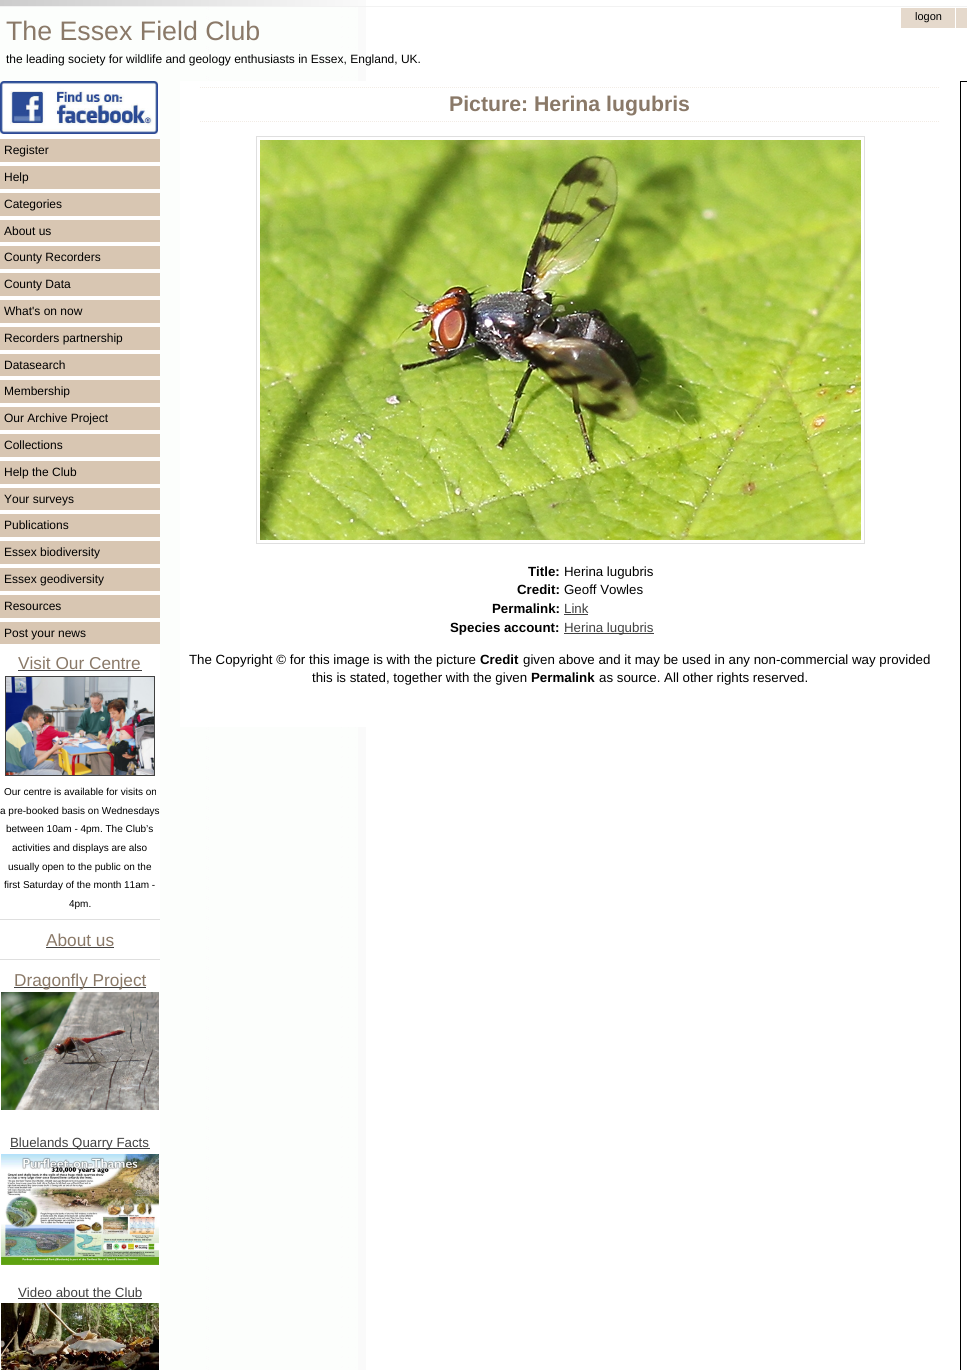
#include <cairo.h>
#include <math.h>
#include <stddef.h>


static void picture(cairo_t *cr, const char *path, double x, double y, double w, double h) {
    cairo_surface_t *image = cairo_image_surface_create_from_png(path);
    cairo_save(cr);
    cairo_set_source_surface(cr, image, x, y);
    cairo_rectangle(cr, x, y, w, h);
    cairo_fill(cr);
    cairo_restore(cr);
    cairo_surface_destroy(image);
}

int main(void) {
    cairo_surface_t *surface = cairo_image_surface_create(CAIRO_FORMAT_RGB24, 967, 1370);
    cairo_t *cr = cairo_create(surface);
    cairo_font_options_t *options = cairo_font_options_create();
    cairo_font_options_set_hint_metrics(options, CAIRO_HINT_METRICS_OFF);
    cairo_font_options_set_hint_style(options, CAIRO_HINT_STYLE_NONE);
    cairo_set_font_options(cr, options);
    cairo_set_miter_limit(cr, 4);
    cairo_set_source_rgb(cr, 1, 1, 1);
    cairo_paint(cr);
    picture(cr, "img1.png", 0, 0, 366, 1370);
    picture(cr, "img2.png", 0, 7, 358, 1363);
    cairo_set_source_rgb(cr, 0.949, 0.949, 0.949);
    cairo_rectangle(cr, 0, 6, 967, 1);
    cairo_fill(cr);
    cairo_set_source_rgb(cr, 0.898, 0.851, 0.8);
    cairo_rectangle(cr, 901, 8, 54, 20);
    cairo_fill(cr);
    cairo_select_font_face(cr, "Liberation Sans", CAIRO_FONT_SLANT_NORMAL, CAIRO_FONT_WEIGHT_NORMAL);
    cairo_set_font_size(cr, 11);
    cairo_set_source_rgb(cr, 0, 0, 0);
    cairo_move_to(cr, 915, 20);
    cairo_show_text(cr, "logon");
    cairo_set_source_rgb(cr, 0.898, 0.851, 0.8);
    cairo_rectangle(cr, 956, 8, 11, 20);
    cairo_fill(cr);
    cairo_set_font_size(cr, 26.75);
    cairo_set_source_rgb(cr, 0.541, 0.475, 0.408);
    cairo_move_to(cr, 6, 40);
    cairo_show_text(cr, "The Essex Field Club");
    cairo_set_font_size(cr, 12);
    cairo_set_source_rgb(cr, 0, 0, 0);
    cairo_move_to(cr, 6, 63);
    cairo_show_text(cr, "the leading society for wildlife and geology enthusiasts in Essex, England, UK.");
    cairo_set_source_rgb(cr, 1, 1, 1);
    cairo_rectangle(cr, 0, 81, 160, 1289);
    cairo_fill(cr);
    picture(cr, "img3.png", 0, 81, 158, 53);
    cairo_set_source_rgb(cr, 0.847, 0.776, 0.698);
    cairo_rectangle(cr, 0, 139, 160, 23);
    cairo_fill(cr);
    cairo_set_source_rgb(cr, 0, 0, 0);
    cairo_move_to(cr, 4, 154);
    cairo_show_text(cr, "Register");
    cairo_set_source_rgb(cr, 0.847, 0.776, 0.698);
    cairo_rectangle(cr, 0, 166, 160, 23);
    cairo_fill(cr);
    cairo_set_source_rgb(cr, 0, 0, 0);
    cairo_move_to(cr, 4, 181);
    cairo_show_text(cr, "Help");
    cairo_set_source_rgb(cr, 0.847, 0.776, 0.698);
    cairo_rectangle(cr, 0, 193, 160, 23);
    cairo_fill(cr);
    cairo_set_source_rgb(cr, 0, 0, 0);
    cairo_move_to(cr, 4, 208);
    cairo_show_text(cr, "Categories");
    cairo_set_source_rgb(cr, 0.847, 0.776, 0.698);
    cairo_rectangle(cr, 0, 220, 160, 22);
    cairo_fill(cr);
    cairo_set_source_rgb(cr, 0, 0, 0);
    cairo_move_to(cr, 4, 235);
    cairo_show_text(cr, "About us");
    cairo_set_source_rgb(cr, 0.847, 0.776, 0.698);
    cairo_rectangle(cr, 0, 246, 160, 23);
    cairo_fill(cr);
    cairo_set_source_rgb(cr, 0, 0, 0);
    cairo_move_to(cr, 4, 261);
    cairo_show_text(cr, "County Recorders");
    cairo_set_source_rgb(cr, 0.847, 0.776, 0.698);
    cairo_rectangle(cr, 0, 273, 160, 23);
    cairo_fill(cr);
    cairo_set_source_rgb(cr, 0, 0, 0);
    cairo_move_to(cr, 4, 288);
    cairo_show_text(cr, "County Data");
    cairo_set_source_rgb(cr, 0.847, 0.776, 0.698);
    cairo_rectangle(cr, 0, 300, 160, 23);
    cairo_fill(cr);
    cairo_set_source_rgb(cr, 0, 0, 0);
    cairo_move_to(cr, 4, 315);
    cairo_show_text(cr, "What's on now");
    cairo_set_source_rgb(cr, 0.847, 0.776, 0.698);
    cairo_rectangle(cr, 0, 327, 160, 23);
    cairo_fill(cr);
    cairo_set_source_rgb(cr, 0, 0, 0);
    cairo_move_to(cr, 4, 342);
    cairo_show_text(cr, "Recorders partnership");
    cairo_set_source_rgb(cr, 0.847, 0.776, 0.698);
    cairo_rectangle(cr, 0, 354, 160, 22);
    cairo_fill(cr);
    cairo_set_source_rgb(cr, 0, 0, 0);
    cairo_move_to(cr, 4, 369);
    cairo_show_text(cr, "Datasearch");
    cairo_set_source_rgb(cr, 0.847, 0.776, 0.698);
    cairo_rectangle(cr, 0, 380, 160, 23);
    cairo_fill(cr);
    cairo_set_source_rgb(cr, 0, 0, 0);
    cairo_move_to(cr, 4, 395);
    cairo_show_text(cr, "Membership");
    cairo_set_source_rgb(cr, 0.847, 0.776, 0.698);
    cairo_rectangle(cr, 0, 407, 160, 23);
    cairo_fill(cr);
    cairo_set_source_rgb(cr, 0, 0, 0);
    cairo_move_to(cr, 4, 422);
    cairo_show_text(cr, "Our Archive Project");
    cairo_set_source_rgb(cr, 0.847, 0.776, 0.698);
    cairo_rectangle(cr, 0, 434, 160, 23);
    cairo_fill(cr);
    cairo_set_source_rgb(cr, 0, 0, 0);
    cairo_move_to(cr, 4, 449);
    cairo_show_text(cr, "Collections");
    cairo_set_source_rgb(cr, 0.847, 0.776, 0.698);
    cairo_rectangle(cr, 0, 461, 160, 23);
    cairo_fill(cr);
    cairo_set_source_rgb(cr, 0, 0, 0);
    cairo_move_to(cr, 4, 476);
    cairo_show_text(cr, "Help the Club");
    cairo_set_source_rgb(cr, 0.847, 0.776, 0.698);
    cairo_rectangle(cr, 0, 488, 160, 22);
    cairo_fill(cr);
    cairo_set_source_rgb(cr, 0, 0, 0);
    cairo_move_to(cr, 4, 503);
    cairo_show_text(cr, "Your surveys");
    cairo_set_source_rgb(cr, 0.847, 0.776, 0.698);
    cairo_rectangle(cr, 0, 514, 160, 23);
    cairo_fill(cr);
    cairo_set_source_rgb(cr, 0, 0, 0);
    cairo_move_to(cr, 4, 529);
    cairo_show_text(cr, "Publications");
    cairo_set_source_rgb(cr, 0.847, 0.776, 0.698);
    cairo_rectangle(cr, 0, 541, 160, 23);
    cairo_fill(cr);
    cairo_set_source_rgb(cr, 0, 0, 0);
    cairo_move_to(cr, 4, 556);
    cairo_show_text(cr, "Essex biodiversity");
    cairo_set_source_rgb(cr, 0.847, 0.776, 0.698);
    cairo_rectangle(cr, 0, 568, 160, 23);
    cairo_fill(cr);
    cairo_set_source_rgb(cr, 0, 0, 0);
    cairo_move_to(cr, 4, 583);
    cairo_show_text(cr, "Essex geodiversity");
    cairo_set_source_rgb(cr, 0.847, 0.776, 0.698);
    cairo_rectangle(cr, 0, 595, 160, 23);
    cairo_fill(cr);
    cairo_set_source_rgb(cr, 0, 0, 0);
    cairo_move_to(cr, 4, 610);
    cairo_show_text(cr, "Resources");
    cairo_set_source_rgb(cr, 0.847, 0.776, 0.698);
    cairo_rectangle(cr, 0, 622, 160, 22);
    cairo_fill(cr);
    cairo_set_source_rgb(cr, 0, 0, 0);
    cairo_move_to(cr, 4, 637);
    cairo_show_text(cr, "Post your news");
    cairo_set_font_size(cr, 17.25);
    cairo_set_source_rgb(cr, 0.541, 0.475, 0.408);
    cairo_move_to(cr, 18, 669);
    cairo_show_text(cr, "Visit Our Centre");
    cairo_set_source_rgb(cr, 0.255, 0.255, 0.255);
    cairo_rectangle(cr, 18, 670, 124, 1);
    cairo_fill(cr);
    cairo_rectangle(cr, 5.5, 676.5, 149, 99);
    cairo_set_line_width(cr, 1);
    cairo_stroke(cr);
    picture(cr, "img4.png", 6, 677, 148, 98);
    cairo_set_font_size(cr, 10);
    cairo_set_source_rgb(cr, 0, 0, 0);
    cairo_move_to(cr, 4, 795);
    cairo_show_text(cr, "Our centre is available for visits on");
    cairo_move_to(cr, 0, 814);
    cairo_show_text(cr, "a pre-booked basis on Wednesdays");
    cairo_move_to(cr, 6, 832);
    cairo_show_text(cr, "between 10am - 4pm. The Club’s");
    cairo_move_to(cr, 12, 851);
    cairo_show_text(cr, "activities and displays are also");
    cairo_move_to(cr, 8, 870);
    cairo_show_text(cr, "usually open to the public on the");
    cairo_move_to(cr, 4, 888);
    cairo_show_text(cr, "first Saturday of the month 11am -");
    cairo_move_to(cr, 69, 907);
    cairo_show_text(cr, "4pm.");
    cairo_set_source_rgb(cr, 0.875, 0.875, 0.875);
    cairo_rectangle(cr, 0, 919, 160, 1);
    cairo_fill(cr);
    cairo_set_font_size(cr, 17.25);
    cairo_set_source_rgb(cr, 0.541, 0.475, 0.408);
    cairo_move_to(cr, 46, 946);
    cairo_show_text(cr, "About us");
    cairo_set_source_rgb(cr, 0.255, 0.255, 0.255);
    cairo_rectangle(cr, 46, 947, 68, 1);
    cairo_fill(cr);
    cairo_set_source_rgb(cr, 0.875, 0.875, 0.875);
    cairo_rectangle(cr, 0, 959, 160, 1);
    cairo_fill(cr);
    cairo_set_source_rgb(cr, 0.255, 0.255, 0.255);
    cairo_rectangle(cr, 14, 987, 132, 1);
    cairo_fill(cr);
    cairo_set_source_rgb(cr, 0.541, 0.475, 0.408);
    cairo_move_to(cr, 14, 986);
    cairo_show_text(cr, "Dragonfly Project");
    picture(cr, "img5.png", 1, 992, 158, 118);
    cairo_set_source_rgb(cr, 0.255, 0.255, 0.255);
    cairo_rectangle(cr, 10, 1148, 140, 1);
    cairo_fill(cr);
    cairo_set_font_size(cr, 13.3);
    cairo_move_to(cr, 10, 1147);
    cairo_show_text(cr, "Bluelands Quarry Facts");
    picture(cr, "img6.png", 1, 1154, 158, 111);
    cairo_move_to(cr, 18, 1297);
    cairo_show_text(cr, "Video about the Club");
    cairo_rectangle(cr, 18, 1298, 124, 1);
    cairo_fill(cr);
    picture(cr, "img7.png", 1, 1303, 158, 67);
    cairo_set_source_rgb(cr, 1, 1, 1);
    cairo_rectangle(cr, 180, 81, 186, 646);
    cairo_fill(cr);
    cairo_new_path(cr);
    cairo_move_to(cr, 200, 87.5);
    cairo_line_to(cr, 940, 87.5);
    cairo_set_source_rgb(cr, 0.949, 0.925, 0.898);
    cairo_set_dash(cr, (double[]){1, 1}, 2, 0);
    cairo_stroke(cr);
    cairo_new_path(cr);
    cairo_move_to(cr, 200, 121.5);
    cairo_line_to(cr, 940, 121.5);
    cairo_stroke(cr);
    cairo_select_font_face(cr, "Liberation Sans", CAIRO_FONT_SLANT_NORMAL, CAIRO_FONT_WEIGHT_BOLD);
    cairo_set_font_size(cr, 21.25);
    cairo_set_source_rgb(cr, 0.541, 0.475, 0.408);
    cairo_move_to(cr, 449, 111);
    cairo_show_text(cr, "Picture: Herina lugubris");
    cairo_rectangle(cr, 256.5, 136.5, 608, 407);
    cairo_set_source_rgb(cr, 0.875, 0.875, 0.875);
    cairo_set_dash(cr, NULL, 0, 0);
    cairo_stroke(cr);
    picture(cr, "img8.png", 260, 140, 601, 400);
    cairo_set_font_size(cr, 13.3);
    cairo_set_source_rgb(cr, 0, 0, 0);
    cairo_move_to(cr, 528, 576);
    cairo_show_text(cr, "Title:");
    cairo_select_font_face(cr, "Liberation Sans", CAIRO_FONT_SLANT_NORMAL, CAIRO_FONT_WEIGHT_NORMAL);
    cairo_move_to(cr, 564, 576);
    cairo_show_text(cr, "Herina lugubris");
    cairo_select_font_face(cr, "Liberation Sans", CAIRO_FONT_SLANT_NORMAL, CAIRO_FONT_WEIGHT_BOLD);
    cairo_move_to(cr, 517, 594);
    cairo_show_text(cr, "Credit:");
    cairo_select_font_face(cr, "Liberation Sans", CAIRO_FONT_SLANT_NORMAL, CAIRO_FONT_WEIGHT_NORMAL);
    cairo_move_to(cr, 564, 594);
    cairo_show_text(cr, "Geoff Vowles");
    cairo_select_font_face(cr, "Liberation Sans", CAIRO_FONT_SLANT_NORMAL, CAIRO_FONT_WEIGHT_BOLD);
    cairo_move_to(cr, 492, 613);
    cairo_show_text(cr, "Permalink:");
    cairo_select_font_face(cr, "Liberation Sans", CAIRO_FONT_SLANT_NORMAL, CAIRO_FONT_WEIGHT_NORMAL);
    cairo_set_source_rgb(cr, 0.255, 0.255, 0.255);
    cairo_move_to(cr, 564, 613);
    cairo_show_text(cr, "Link");
    cairo_rectangle(cr, 564, 614, 24, 1);
    cairo_fill(cr);
    cairo_select_font_face(cr, "Liberation Sans", CAIRO_FONT_SLANT_NORMAL, CAIRO_FONT_WEIGHT_BOLD);
    cairo_set_source_rgb(cr, 0, 0, 0);
    cairo_move_to(cr, 450, 632);
    cairo_show_text(cr, "Species account:");
    cairo_set_source_rgb(cr, 0.255, 0.255, 0.255);
    cairo_rectangle(cr, 564, 633, 90, 1);
    cairo_fill(cr);
    cairo_select_font_face(cr, "Liberation Sans", CAIRO_FONT_SLANT_NORMAL, CAIRO_FONT_WEIGHT_NORMAL);
    cairo_move_to(cr, 564, 632);
    cairo_show_text(cr, "Herina lugubris");
    cairo_set_source_rgb(cr, 0, 0, 0);
    cairo_move_to(cr, 189, 664);
    cairo_show_text(cr, "The Copyright © for this image is with the picture");
    cairo_select_font_face(cr, "Liberation Sans", CAIRO_FONT_SLANT_NORMAL, CAIRO_FONT_WEIGHT_BOLD);
    cairo_move_to(cr, 480, 664);
    cairo_show_text(cr, "Credit");
    cairo_select_font_face(cr, "Liberation Sans", CAIRO_FONT_SLANT_NORMAL, CAIRO_FONT_WEIGHT_NORMAL);
    cairo_move_to(cr, 523, 664);
    cairo_show_text(cr, "given above and it may be used in any non-commercial way provided");
    cairo_move_to(cr, 312, 682);
    cairo_show_text(cr, "this is stated, together with the given");
    cairo_select_font_face(cr, "Liberation Sans", CAIRO_FONT_SLANT_NORMAL, CAIRO_FONT_WEIGHT_BOLD);
    cairo_move_to(cr, 531, 682);
    cairo_show_text(cr, "Permalink");
    cairo_select_font_face(cr, "Liberation Sans", CAIRO_FONT_SLANT_NORMAL, CAIRO_FONT_WEIGHT_NORMAL);
    cairo_move_to(cr, 599, 682);
    cairo_show_text(cr, "as source. All other rights reserved.");
    cairo_rectangle(cr, 960.5, 81.5, 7, 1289);
    cairo_stroke(cr);
    cairo_surface_write_to_png(surface, "page.png");
    cairo_font_options_destroy(options);
    cairo_destroy(cr);
    cairo_surface_destroy(surface);
    return 0;
}
